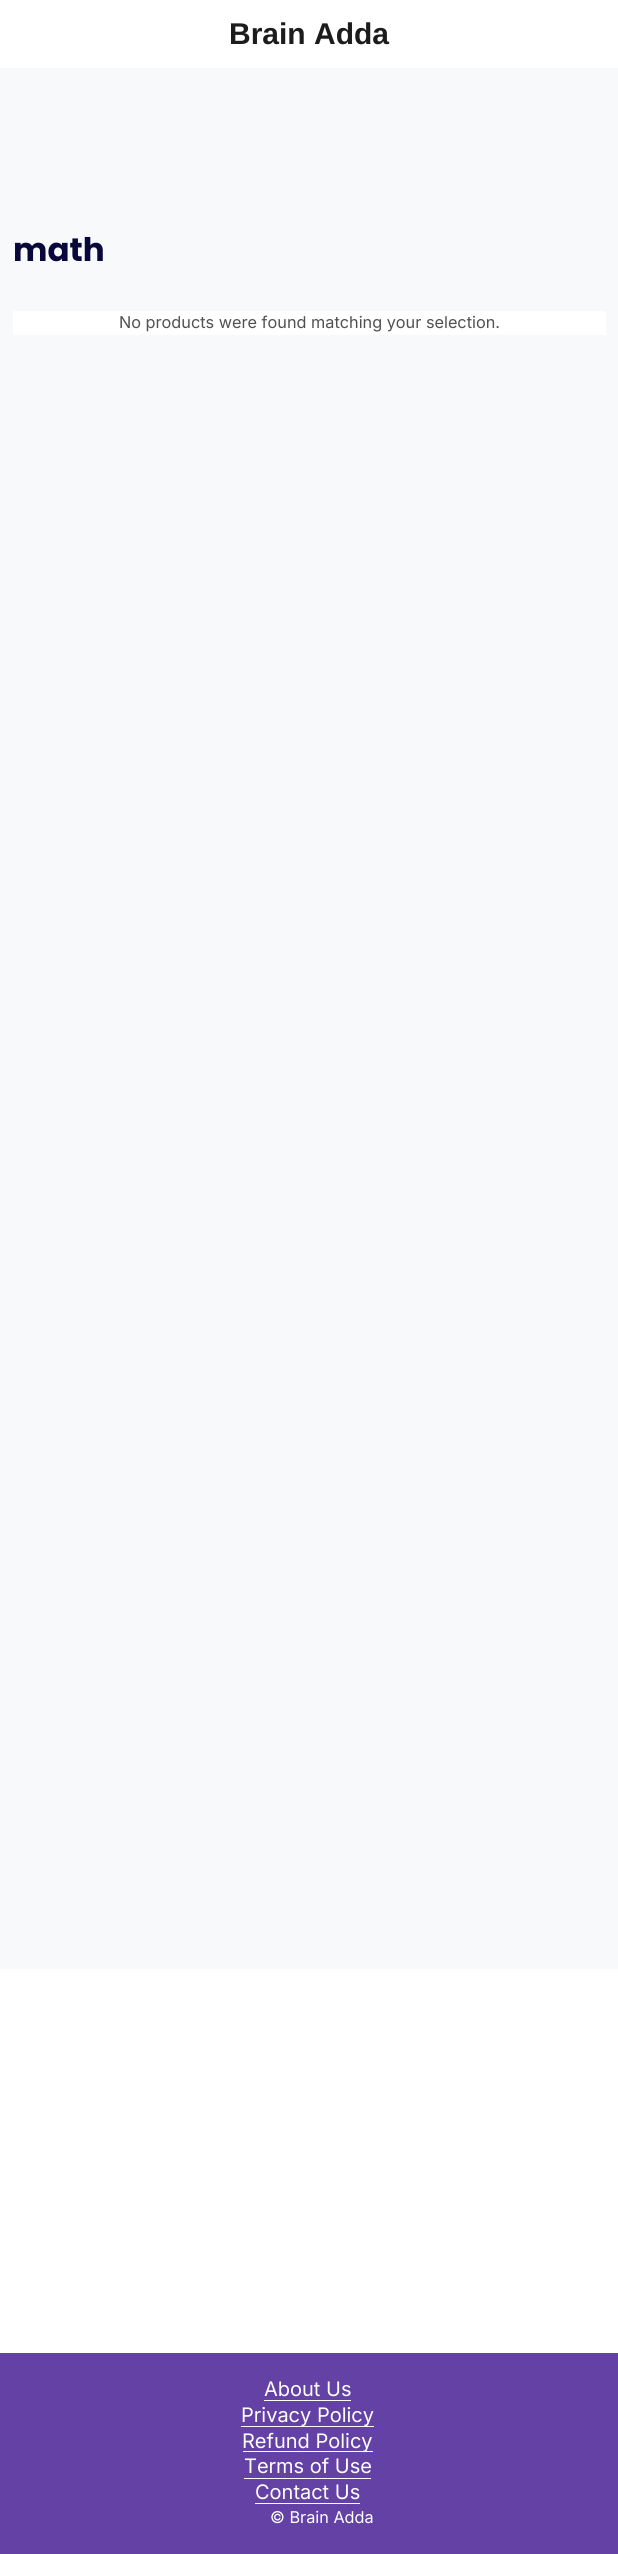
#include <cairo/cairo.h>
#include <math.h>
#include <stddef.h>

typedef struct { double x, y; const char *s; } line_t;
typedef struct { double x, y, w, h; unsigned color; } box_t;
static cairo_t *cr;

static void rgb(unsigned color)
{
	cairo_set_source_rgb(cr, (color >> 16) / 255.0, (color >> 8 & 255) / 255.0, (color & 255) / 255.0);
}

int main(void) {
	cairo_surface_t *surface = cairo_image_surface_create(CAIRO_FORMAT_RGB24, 618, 2554);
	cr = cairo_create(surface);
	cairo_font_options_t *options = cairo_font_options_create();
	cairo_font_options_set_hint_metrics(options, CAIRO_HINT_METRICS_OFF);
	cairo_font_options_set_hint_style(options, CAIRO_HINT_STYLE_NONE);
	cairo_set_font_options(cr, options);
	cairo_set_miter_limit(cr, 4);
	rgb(0xf7f9fa);
	cairo_paint(cr);
	{
		static const box_t items[] = {
			{0, 0, 618, 68, 0xffffff},
			{13, 311, 593, 24, 0xffffff},
			{0, 1969, 618, 384, 0xffffff},
			{0, 2353, 618, 201, 0x6441a5},
			{264, 2400, 87, 1, 0xffffff},
			{241, 2426, 133, 1, 0xffffff},
			{243, 2451, 130, 1, 0xffffff},
			{244, 2478, 127, 1, 0xffffff},
			{255, 2503, 105, 1, 0xffffff},
		};
		for (size_t i = 0; i < sizeof items / sizeof *items; i++) {
			rgb(items[i].color);
			cairo_rectangle(cr, items[i].x, items[i].y, items[i].w, items[i].h);
			cairo_fill(cr);
		}
	}
	cairo_select_font_face(cr, "Liberation Sans", CAIRO_FONT_SLANT_NORMAL, CAIRO_FONT_WEIGHT_BOLD);
	cairo_set_font_size(cr, 30);
	rgb(0x1c1c1c);
	cairo_move_to(cr, 229, 44);
	cairo_show_text(cr, "Brain Adda");
	cairo_select_font_face(cr, "Poppins", CAIRO_FONT_SLANT_NORMAL, CAIRO_FONT_WEIGHT_BOLD);
	cairo_set_font_size(cr, 32.5);
	rgb(0x0a083b);
	cairo_move_to(cr, 13, 261);
	cairo_show_text(cr, "math");
	cairo_select_font_face(cr, "Inter", CAIRO_FONT_SLANT_NORMAL, CAIRO_FONT_WEIGHT_NORMAL);
	cairo_set_font_size(cr, 16.25);
	rgb(0x515151);
	cairo_move_to(cr, 119, 328);
	cairo_show_text(cr, "No products were found matching your selection.");
	cairo_set_font_size(cr, 20);
	rgb(0xffffff);
	{
		static const line_t items[] = {
			{264, 2396, "About Us"},
			{241, 2422, "Privacy Policy"},
			{242, 2448, "Refund Policy"},
			{244, 2473, "Terms of Use"},
			{255, 2499, "Contact Us"},
		};
		for (size_t i = 0; i < sizeof items / sizeof *items; i++) {
			cairo_move_to(cr, items[i].x, items[i].y);
			cairo_show_text(cr, items[i].s);
		}
	}
	cairo_set_font_size(cr, 16.25);
	cairo_move_to(cr, 270, 2523);
	cairo_show_text(cr, "© Brain Adda");
	cairo_surface_write_to_png(surface, "page.png");
	cairo_font_options_destroy(options);
	cairo_destroy(cr);
	cairo_surface_destroy(surface);
	return 0;
}
